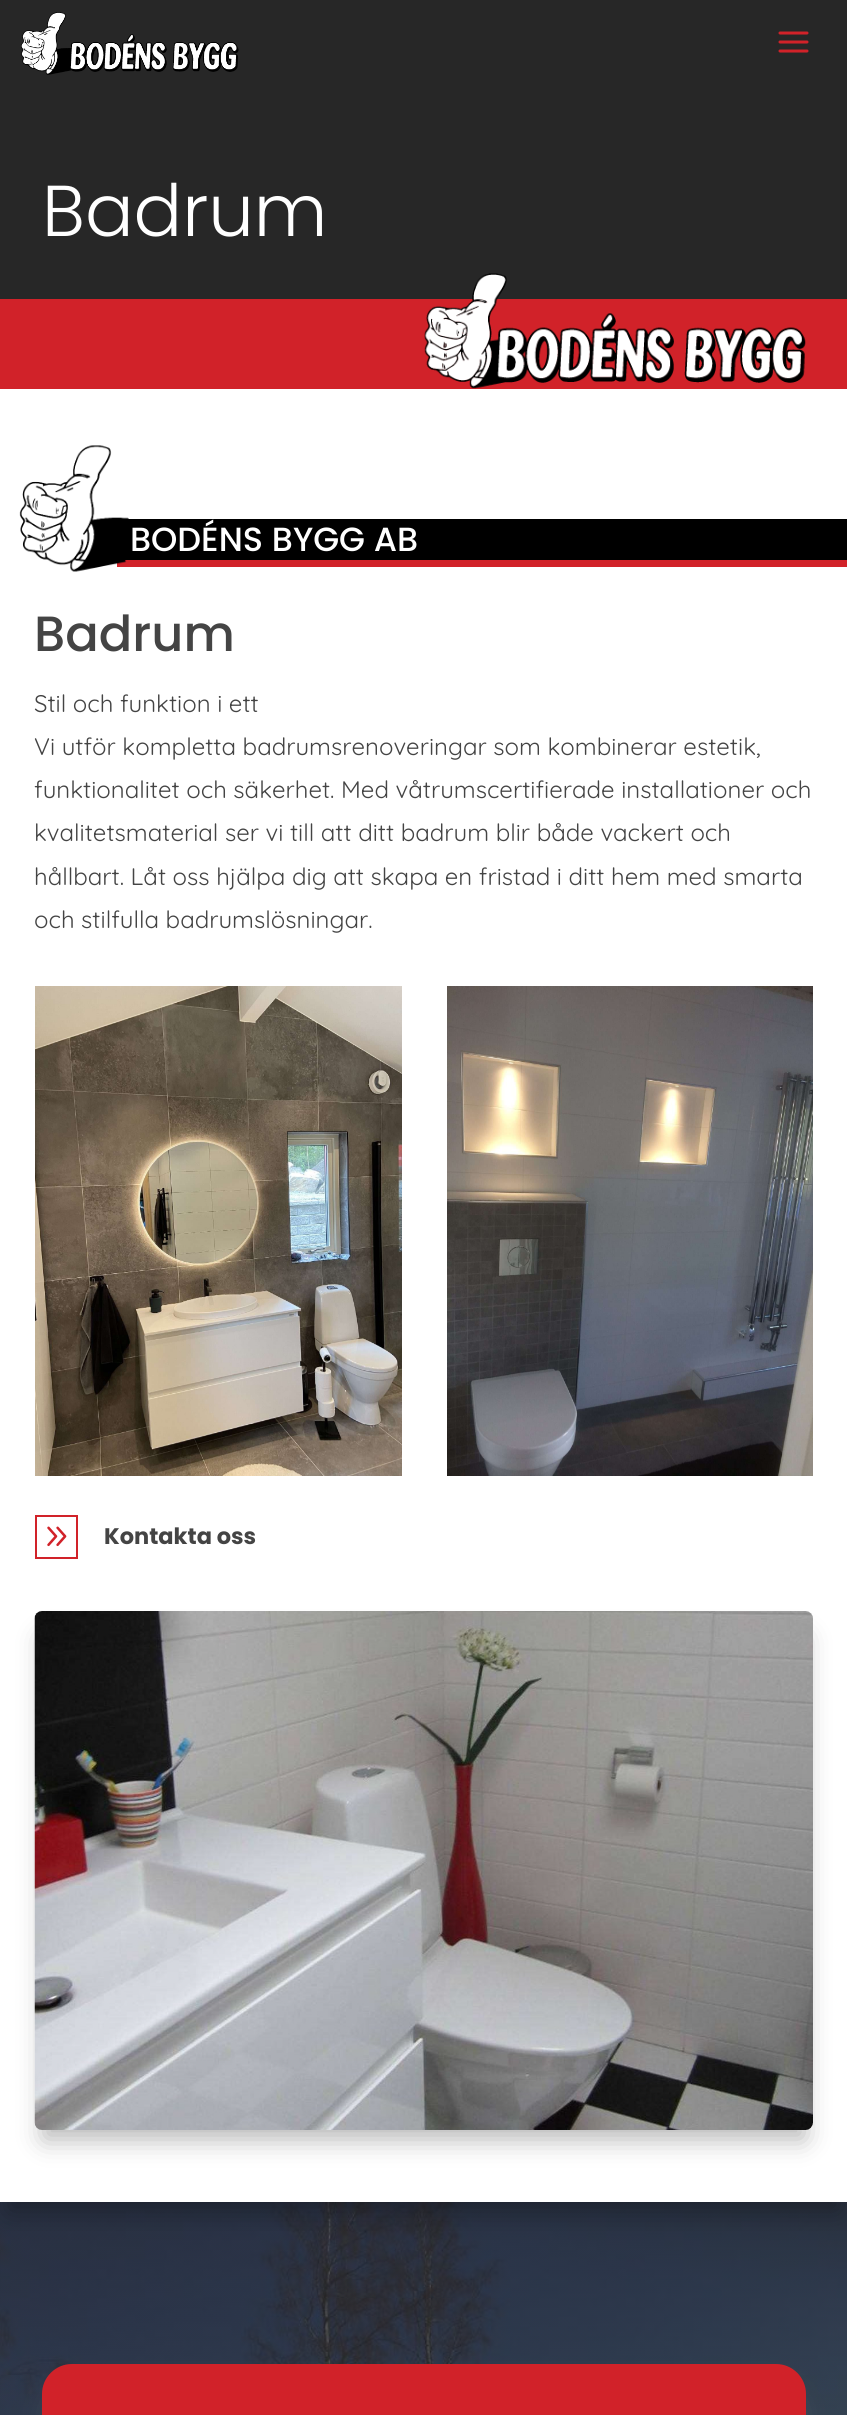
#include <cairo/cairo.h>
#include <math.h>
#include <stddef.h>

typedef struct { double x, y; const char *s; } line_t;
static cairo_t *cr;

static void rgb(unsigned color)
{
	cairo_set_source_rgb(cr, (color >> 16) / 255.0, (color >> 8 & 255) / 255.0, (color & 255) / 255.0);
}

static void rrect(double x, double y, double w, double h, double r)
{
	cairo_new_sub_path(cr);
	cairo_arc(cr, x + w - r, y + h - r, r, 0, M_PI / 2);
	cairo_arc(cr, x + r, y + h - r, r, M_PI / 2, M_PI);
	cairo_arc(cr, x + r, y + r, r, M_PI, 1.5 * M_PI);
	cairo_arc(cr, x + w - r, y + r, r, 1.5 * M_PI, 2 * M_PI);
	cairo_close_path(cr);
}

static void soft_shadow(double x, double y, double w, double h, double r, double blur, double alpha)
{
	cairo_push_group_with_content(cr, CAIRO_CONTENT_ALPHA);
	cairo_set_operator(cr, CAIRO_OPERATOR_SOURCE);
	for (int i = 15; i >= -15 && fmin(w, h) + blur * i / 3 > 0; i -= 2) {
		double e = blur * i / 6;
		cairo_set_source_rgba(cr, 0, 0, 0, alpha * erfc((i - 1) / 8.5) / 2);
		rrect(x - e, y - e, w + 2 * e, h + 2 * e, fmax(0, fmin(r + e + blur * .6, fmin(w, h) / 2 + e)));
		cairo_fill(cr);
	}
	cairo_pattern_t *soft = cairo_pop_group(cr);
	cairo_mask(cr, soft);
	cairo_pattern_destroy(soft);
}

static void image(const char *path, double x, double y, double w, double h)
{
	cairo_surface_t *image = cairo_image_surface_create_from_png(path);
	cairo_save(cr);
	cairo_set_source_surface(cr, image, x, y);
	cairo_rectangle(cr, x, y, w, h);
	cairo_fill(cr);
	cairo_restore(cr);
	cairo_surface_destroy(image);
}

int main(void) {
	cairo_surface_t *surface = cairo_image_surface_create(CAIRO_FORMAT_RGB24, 847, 2415);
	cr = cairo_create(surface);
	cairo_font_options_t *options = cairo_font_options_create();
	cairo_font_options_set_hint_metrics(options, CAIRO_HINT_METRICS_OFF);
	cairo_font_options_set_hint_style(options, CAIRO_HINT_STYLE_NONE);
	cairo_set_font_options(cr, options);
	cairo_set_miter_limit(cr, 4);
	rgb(0xffffff);
	cairo_paint(cr);
	rgb(0x272727);
	cairo_rectangle(cr, 0, 0, 847, 299);
	cairo_fill(cr);
	image("img/1.png", 21, 12, 218, 63);
	image("img/2.png", 778, 31, 31, 22);
	rgb(0xd12229);
	cairo_rectangle(cr, 0, 299, 847, 90);
	cairo_fill(cr);
	image("img/3.png", 424, 273, 382, 116);
	image("img/9.png", 0, 2202, 847, 213);
	cairo_save(cr);
	cairo_rectangle(cr, 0, 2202, 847, 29);
	cairo_clip(cr);
	rgb(0x000000);
	soft_shadow(9, 416, 830, 1795, 0, 13.5, 0.3);
	cairo_restore(cr);
	rgb(0x000000);
	cairo_rectangle(cr, 120, 519, 727, 41);
	cairo_fill(cr);
	rgb(0xd12229);
	cairo_rectangle(cr, 117, 560, 730, 7);
	cairo_fill(cr);
	image("img/4.png", 19, 445, 110, 127);
	image("img/5.png", 35, 986, 367, 490);
	image("img/6.png", 447, 986, 366, 490);
	cairo_rectangle(cr, 36, 1516, 41, 42);
	cairo_stroke(cr);
	image("img/7.png", 47, 1526, 20, 21);
	rgb(0x000000);
	soft_shadow(44, 1638, 760, 501, 0, 13.5, 0.29);
	image("img/8.png", 34, 1611, 779, 519);
	rgb(0x666666);
	soft_shadow(51, 2391, 746, 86, 21, 13.5, 0.51);
	rgb(0xd12229);
	rrect(42, 2364, 764, 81, 30);
	cairo_fill(cr);
	cairo_select_font_face(cr, "Poppins Light", CAIRO_FONT_SLANT_NORMAL, CAIRO_FONT_WEIGHT_NORMAL);
	cairo_set_font_size(cr, 72);
	rgb(0xffffff);
	cairo_move_to(cr, 42, 236);
	cairo_show_text(cr, "Badrum");
	cairo_select_font_face(cr, "Poppins Medium", CAIRO_FONT_SLANT_NORMAL, CAIRO_FONT_WEIGHT_NORMAL);
	cairo_set_font_size(cr, 33.5);
	cairo_move_to(cr, 130, 551);
	cairo_show_text(cr, "BODÉNS BYGG AB");
	cairo_set_font_size(cr, 49.5);
	rgb(0x444444);
	cairo_move_to(cr, 34, 651);
	cairo_show_text(cr, "Badrum");
	cairo_select_font_face(cr, "Quicksand", CAIRO_FONT_SLANT_NORMAL, CAIRO_FONT_WEIGHT_NORMAL);
	cairo_set_font_size(cr, 24);
	{
		static const line_t items[] = {
			{34, 712, "Stil och funktion i ett"},
			{34, 755, "Vi utför kompletta badrumsrenoveringar som kombinerar estetik,"},
			{34, 798, "funktionalitet och säkerhet. Med våtrumscertifierade installationer och"},
			{34, 841, "kvalitetsmaterial ser vi till att ditt badrum blir både vackert och"},
			{34, 885, "hållbart. Låt oss hjälpa dig att skapa en fristad i ditt hem med smarta"},
			{34, 928, "och stilfulla badrumslösningar."},
		};
		for (size_t i = 0; i < sizeof items / sizeof *items; i++) {
			cairo_move_to(cr, items[i].x, items[i].y);
			cairo_show_text(cr, items[i].s);
		}
	}
	cairo_select_font_face(cr, "Poppins", CAIRO_FONT_SLANT_NORMAL, CAIRO_FONT_WEIGHT_BOLD);
	cairo_set_font_size(cr, 22.5);
	cairo_move_to(cr, 104, 1544);
	cairo_show_text(cr, "Kontakta oss");
	cairo_surface_write_to_png(surface, "page.png");
	cairo_font_options_destroy(options);
	cairo_destroy(cr);
	cairo_surface_destroy(surface);
	return 0;
}
